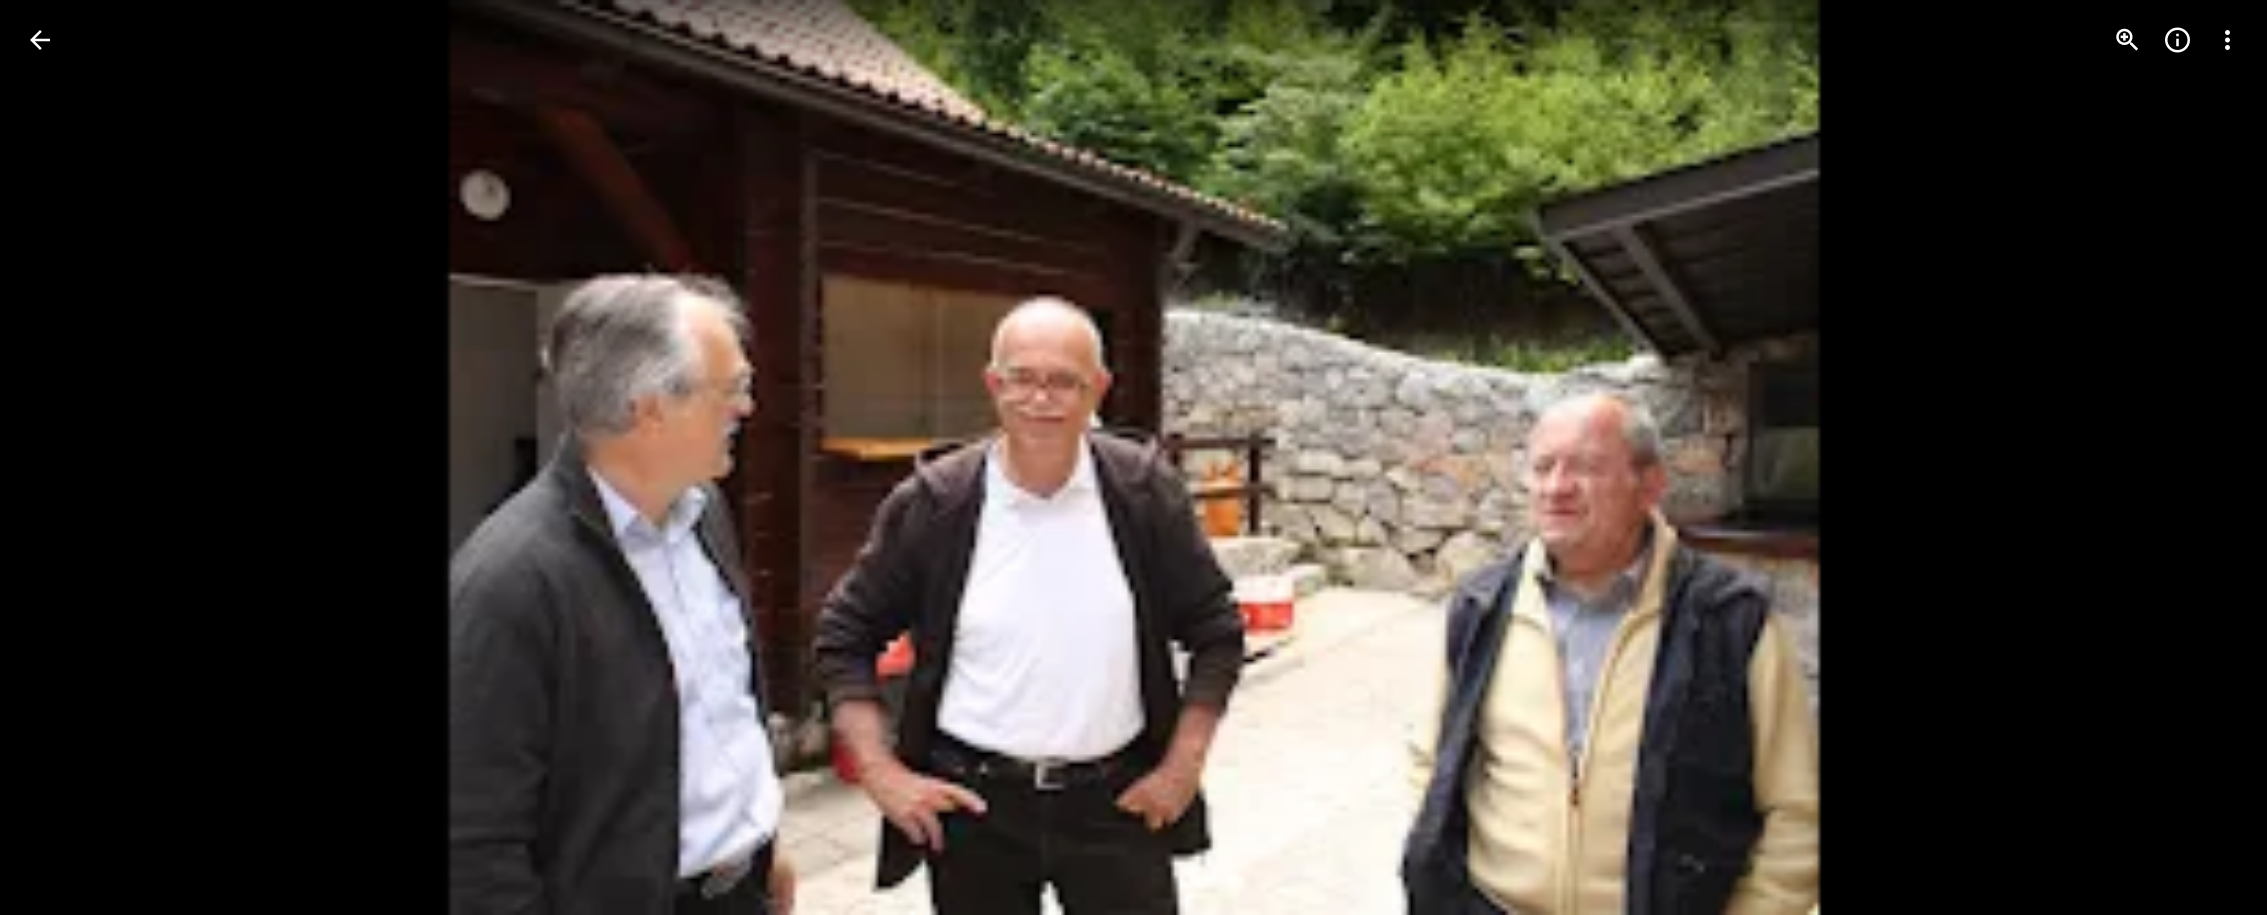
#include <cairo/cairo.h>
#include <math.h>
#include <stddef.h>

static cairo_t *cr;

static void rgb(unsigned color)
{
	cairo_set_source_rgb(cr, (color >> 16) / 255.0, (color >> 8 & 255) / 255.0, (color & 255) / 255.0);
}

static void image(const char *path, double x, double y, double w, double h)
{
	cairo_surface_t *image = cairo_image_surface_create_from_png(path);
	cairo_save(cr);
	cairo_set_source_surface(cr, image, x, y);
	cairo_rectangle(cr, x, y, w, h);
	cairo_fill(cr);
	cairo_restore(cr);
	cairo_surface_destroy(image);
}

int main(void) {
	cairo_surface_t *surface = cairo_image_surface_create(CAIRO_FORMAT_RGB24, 2267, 915);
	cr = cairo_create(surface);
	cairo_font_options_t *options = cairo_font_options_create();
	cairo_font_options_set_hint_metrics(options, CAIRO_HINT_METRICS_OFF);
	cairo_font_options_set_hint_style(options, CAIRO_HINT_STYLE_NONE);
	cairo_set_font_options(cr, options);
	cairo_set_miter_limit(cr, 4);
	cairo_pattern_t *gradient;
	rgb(0x000000);
	cairo_paint(cr);
	image("img/5.png", 443, 0, 1379, 915);
	gradient = cairo_pattern_create_linear(1134, 0, 1134, 80);
	cairo_pattern_add_color_stop_rgba(gradient, 0, 0, 0, 0, 0.6);
	cairo_pattern_add_color_stop_rgba(gradient, 1, 0, 0, 0, 0);
	cairo_set_source(cr, gradient);
	cairo_pattern_destroy(gradient);
	cairo_rectangle(cr, 447, 0, 1375, 77);
	cairo_fill(cr);
	image("img/1.png", 30, 30, 20, 20);
	image("img/2.png", 2116, 28, 22, 23);
	image("img/3.png", 2165, 27, 25, 26);
	image("img/4.png", 2225, 30, 5, 20);
	cairo_surface_write_to_png(surface, "page.png");
	cairo_font_options_destroy(options);
	cairo_destroy(cr);
	cairo_surface_destroy(surface);
	return 0;
}
